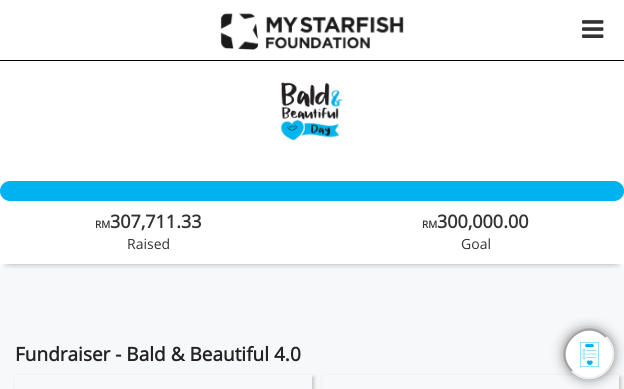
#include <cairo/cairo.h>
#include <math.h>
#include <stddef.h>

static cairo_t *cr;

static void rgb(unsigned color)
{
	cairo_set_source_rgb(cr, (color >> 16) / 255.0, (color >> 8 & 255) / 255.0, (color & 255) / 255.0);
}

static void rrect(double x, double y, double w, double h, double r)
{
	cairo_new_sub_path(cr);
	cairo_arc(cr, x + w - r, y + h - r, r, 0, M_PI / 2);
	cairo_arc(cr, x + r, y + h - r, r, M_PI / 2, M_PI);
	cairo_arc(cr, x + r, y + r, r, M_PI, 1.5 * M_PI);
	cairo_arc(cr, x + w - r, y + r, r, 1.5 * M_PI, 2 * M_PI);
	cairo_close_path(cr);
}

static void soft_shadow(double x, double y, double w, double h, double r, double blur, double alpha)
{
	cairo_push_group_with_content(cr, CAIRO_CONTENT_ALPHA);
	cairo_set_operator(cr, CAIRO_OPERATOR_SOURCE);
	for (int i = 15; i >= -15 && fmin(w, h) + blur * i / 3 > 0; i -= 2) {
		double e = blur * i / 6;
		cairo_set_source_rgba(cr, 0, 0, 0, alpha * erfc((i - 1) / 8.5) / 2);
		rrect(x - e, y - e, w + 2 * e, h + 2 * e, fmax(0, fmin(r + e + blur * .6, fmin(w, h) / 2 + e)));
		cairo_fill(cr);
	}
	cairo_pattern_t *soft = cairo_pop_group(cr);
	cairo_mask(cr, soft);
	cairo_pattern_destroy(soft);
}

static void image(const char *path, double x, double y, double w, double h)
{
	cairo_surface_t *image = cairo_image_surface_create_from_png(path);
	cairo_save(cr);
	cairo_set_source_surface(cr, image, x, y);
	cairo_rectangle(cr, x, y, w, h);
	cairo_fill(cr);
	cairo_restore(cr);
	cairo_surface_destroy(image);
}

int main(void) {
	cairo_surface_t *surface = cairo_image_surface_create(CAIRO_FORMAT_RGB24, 624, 389);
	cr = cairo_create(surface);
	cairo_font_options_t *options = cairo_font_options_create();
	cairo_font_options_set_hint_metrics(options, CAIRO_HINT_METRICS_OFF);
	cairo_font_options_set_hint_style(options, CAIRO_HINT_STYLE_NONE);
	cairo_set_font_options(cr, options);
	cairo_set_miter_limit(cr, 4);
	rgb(0xffffff);
	cairo_paint(cr);
	rgb(0xf7f8f9);
	cairo_rectangle(cr, 0, 264, 624, 125);
	cairo_fill(cr);
	cairo_save(cr);
	cairo_rectangle(cr, 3, 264, 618, 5);
	cairo_clip(cr);
	rgb(0x000000);
	soft_shadow(8, 11, 608, 248, 0, 5, 1);
	cairo_restore(cr);
	image("img/1.png", 220, 13, 184, 38);
	image("img/2.png", 582, 20, 22, 18);
	rgb(0x000000);
	cairo_rectangle(cr, 0, 60, 624, 1);
	cairo_fill(cr);
	image("img/3.png", 280, 82, 63, 59);
	cairo_save(cr);
	rrect(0, 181, 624, 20, 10);
	cairo_clip(cr);
	rgb(0xb8b8b8);
	soft_shadow(1, 182, 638, 18, 9, 2.5, 1);
	cairo_restore(cr);
	rgb(0x00b3f0);
	rrect(0, 181, 624, 20, 10);
	cairo_fill(cr);
	cairo_save(cr);
	cairo_set_fill_rule(cr, CAIRO_FILL_RULE_EVEN_ODD);
	cairo_new_path(cr);
	cairo_move_to(cr, 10, 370);
	cairo_line_to(cr, 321, 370);
	cairo_line_to(cr, 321, 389);
	cairo_line_to(cr, 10, 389);
	cairo_close_path(cr);
	cairo_move_to(cr, 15, 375);
	cairo_line_to(cr, 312, 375);
	cairo_line_to(cr, 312, 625);
	cairo_line_to(cr, 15, 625);
	cairo_close_path(cr);
	cairo_clip(cr);
	rgb(0xc3c3c3);
	soft_shadow(17, 377, 297, 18, 0, 2, 1);
	cairo_restore(cr);
	cairo_save(cr);
	cairo_set_fill_rule(cr, CAIRO_FILL_RULE_EVEN_ODD);
	cairo_new_path(cr);
	cairo_move_to(cr, 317, 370);
	cairo_line_to(cr, 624, 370);
	cairo_line_to(cr, 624, 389);
	cairo_line_to(cr, 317, 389);
	cairo_close_path(cr);
	cairo_move_to(cr, 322, 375);
	cairo_line_to(cr, 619, 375);
	cairo_line_to(cr, 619, 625);
	cairo_line_to(cr, 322, 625);
	cairo_close_path(cr);
	cairo_clip(cr);
	rgb(0xc3c3c3);
	soft_shadow(324, 377, 297, 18, 0, 2, 1);
	cairo_restore(cr);
	rgb(0x000000);
	soft_shadow(569, 334, 40, 40, 20, 7.5, 1);
	rgb(0xffffff);
	cairo_arc(cr, 589, 354, 25, 0, 2 * M_PI);
	cairo_fill(cr);
	cairo_new_path(cr);
	cairo_move_to(cr, 606, 337);
	cairo_curve_to(cr, 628.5, 359.5, 594.5, 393.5, 572, 371);
	rgb(0xeeeeee);
	cairo_stroke(cr);
	cairo_new_path(cr);
	cairo_move_to(cr, 572, 371);
	cairo_curve_to(cr, 549.5, 348.5, 583.5, 314.5, 606, 337);
	rgb(0x9f9f9f);
	cairo_stroke(cr);
	image("img/4.png", 580, 342, 19, 25);
	cairo_select_font_face(cr, "Open Sans", CAIRO_FONT_SLANT_NORMAL, CAIRO_FONT_WEIGHT_BOLD);
	cairo_set_font_size(cr, 10);
	rgb(0x333333);
	cairo_move_to(cr, 95, 228);
	cairo_show_text(cr, "RM");
	cairo_set_font_size(cr, 18);
	cairo_move_to(cr, 110, 228);
	cairo_show_text(cr, "307,711.33");
	cairo_select_font_face(cr, "Open Sans", CAIRO_FONT_SLANT_NORMAL, CAIRO_FONT_WEIGHT_NORMAL);
	cairo_set_font_size(cr, 14);
	cairo_move_to(cr, 127, 249);
	cairo_show_text(cr, "Raised");
	cairo_select_font_face(cr, "Open Sans", CAIRO_FONT_SLANT_NORMAL, CAIRO_FONT_WEIGHT_BOLD);
	cairo_set_font_size(cr, 10);
	cairo_move_to(cr, 422, 228);
	cairo_show_text(cr, "RM");
	cairo_set_font_size(cr, 18);
	cairo_move_to(cr, 437, 228);
	cairo_show_text(cr, "300,000.00");
	cairo_select_font_face(cr, "Open Sans", CAIRO_FONT_SLANT_NORMAL, CAIRO_FONT_WEIGHT_NORMAL);
	cairo_set_font_size(cr, 14);
	cairo_move_to(cr, 461, 249);
	cairo_show_text(cr, "Goal");
	cairo_select_font_face(cr, "Open Sans", CAIRO_FONT_SLANT_NORMAL, CAIRO_FONT_WEIGHT_BOLD);
	cairo_set_font_size(cr, 19);
	rgb(0x232323);
	cairo_move_to(cr, 15, 361);
	cairo_show_text(cr, "Fundraiser - Bald & Beautiful 4.0");
	cairo_surface_write_to_png(surface, "page.png");
	cairo_font_options_destroy(options);
	cairo_destroy(cr);
	cairo_surface_destroy(surface);
	return 0;
}
